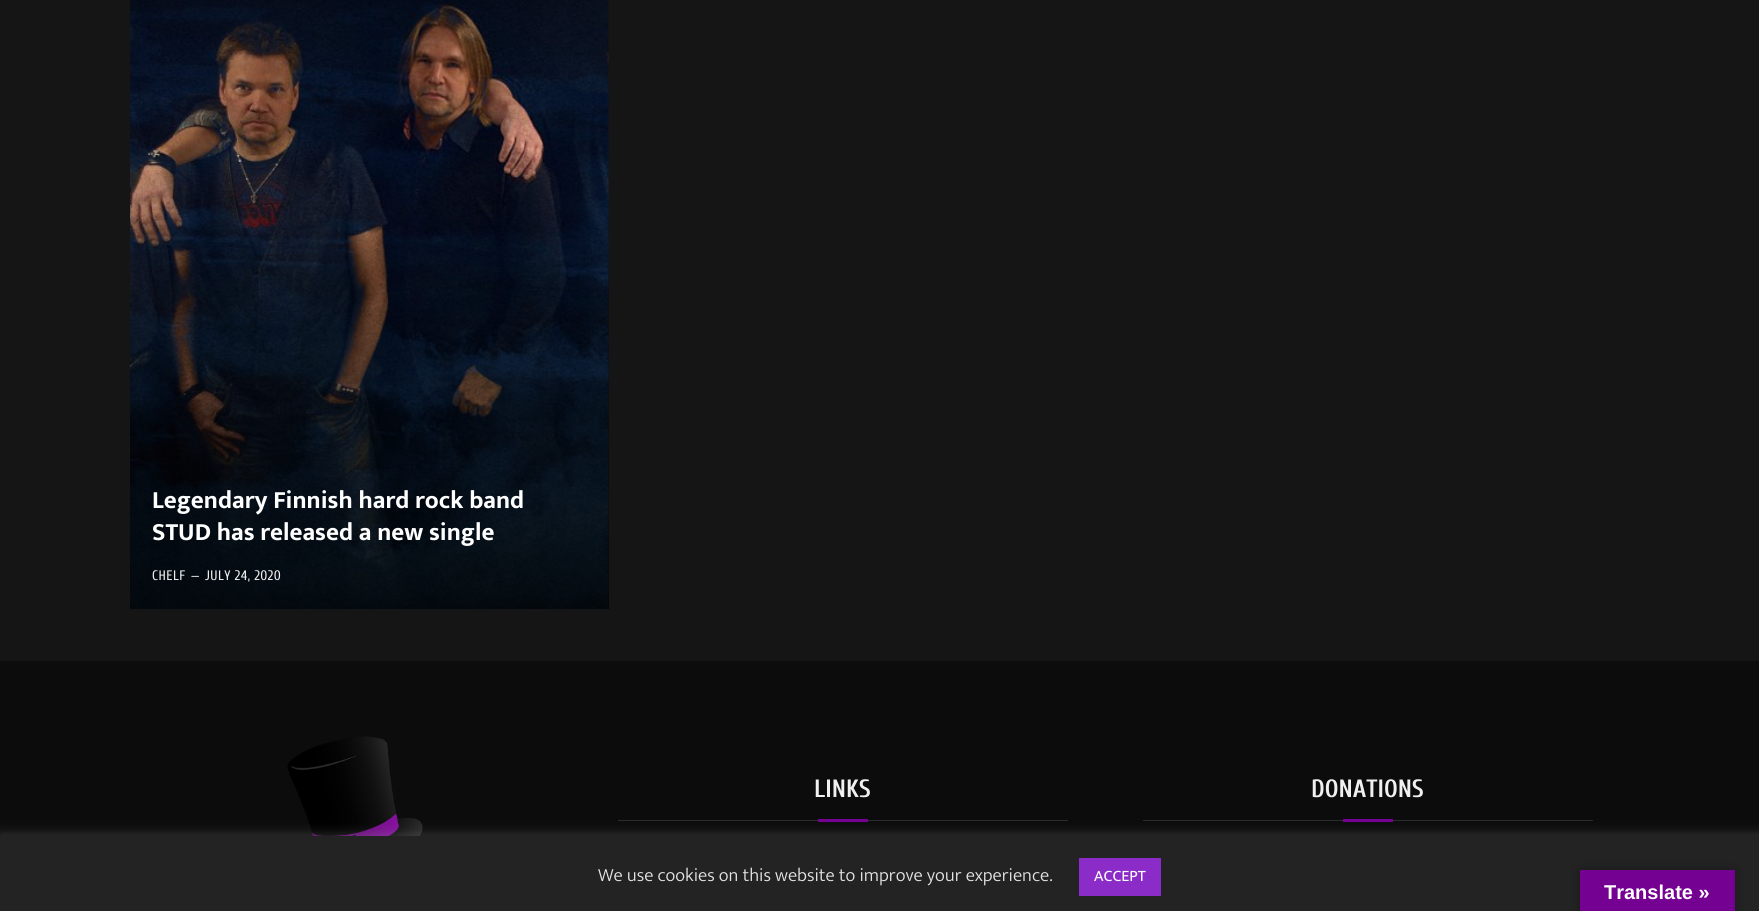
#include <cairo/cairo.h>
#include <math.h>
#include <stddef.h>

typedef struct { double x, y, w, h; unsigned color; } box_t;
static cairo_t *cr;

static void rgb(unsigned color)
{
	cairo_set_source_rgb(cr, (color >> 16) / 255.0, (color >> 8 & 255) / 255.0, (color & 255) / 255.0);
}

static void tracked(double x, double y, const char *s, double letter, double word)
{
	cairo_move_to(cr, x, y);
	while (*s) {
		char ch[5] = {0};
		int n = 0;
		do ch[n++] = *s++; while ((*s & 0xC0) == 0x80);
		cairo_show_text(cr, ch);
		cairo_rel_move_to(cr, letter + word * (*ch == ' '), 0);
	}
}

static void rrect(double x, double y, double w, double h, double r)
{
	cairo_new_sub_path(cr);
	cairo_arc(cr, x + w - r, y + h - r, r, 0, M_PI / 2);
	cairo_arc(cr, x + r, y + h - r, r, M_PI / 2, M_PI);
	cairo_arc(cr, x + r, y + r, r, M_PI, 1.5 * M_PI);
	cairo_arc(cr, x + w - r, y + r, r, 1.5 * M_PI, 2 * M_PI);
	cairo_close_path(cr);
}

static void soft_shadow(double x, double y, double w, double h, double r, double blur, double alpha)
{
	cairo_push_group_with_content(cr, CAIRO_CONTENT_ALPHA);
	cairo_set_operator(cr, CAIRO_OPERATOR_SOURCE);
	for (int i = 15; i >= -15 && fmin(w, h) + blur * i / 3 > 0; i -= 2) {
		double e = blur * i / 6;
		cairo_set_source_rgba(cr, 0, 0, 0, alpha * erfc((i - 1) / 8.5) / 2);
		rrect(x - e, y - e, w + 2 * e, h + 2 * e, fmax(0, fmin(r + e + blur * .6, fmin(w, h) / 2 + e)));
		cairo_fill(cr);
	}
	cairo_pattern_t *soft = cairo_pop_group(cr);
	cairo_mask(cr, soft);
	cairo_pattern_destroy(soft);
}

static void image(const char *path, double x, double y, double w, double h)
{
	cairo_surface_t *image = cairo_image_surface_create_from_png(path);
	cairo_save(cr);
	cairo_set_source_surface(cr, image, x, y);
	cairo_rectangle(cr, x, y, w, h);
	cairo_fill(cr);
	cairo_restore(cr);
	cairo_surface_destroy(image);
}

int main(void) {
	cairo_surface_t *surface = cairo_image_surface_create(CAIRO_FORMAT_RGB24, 1759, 911);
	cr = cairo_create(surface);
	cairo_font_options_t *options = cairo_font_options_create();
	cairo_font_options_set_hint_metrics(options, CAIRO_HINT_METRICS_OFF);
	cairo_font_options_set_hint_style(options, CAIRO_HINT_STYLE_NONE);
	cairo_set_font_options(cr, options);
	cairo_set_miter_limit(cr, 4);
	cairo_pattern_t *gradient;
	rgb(0x151516);
	cairo_paint(cr);
	image("img/1.png", 130, 0, 479, 609);
	gradient = cairo_pattern_create_linear(369, -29, 369, 609);
	cairo_pattern_add_color_stop_rgba(gradient, 0.35, 0, 0, 0, 0);
	cairo_pattern_add_color_stop_rgba(gradient, 1, 0, 0, 0, 0.77);
	cairo_set_source(cr, gradient);
	cairo_pattern_destroy(gradient);
	cairo_rectangle(cr, 130, 206, 479, 403);
	cairo_fill(cr);
	rgb(0x0c0c0c);
	cairo_rectangle(cr, 0, 661, 1759, 175);
	cairo_fill(cr);
	image("img/2.png", 287, 736, 136, 100);
	{
		static const box_t items[] = {
			{618, 820, 450, 1, 0x2c2c2c},
			{818, 819, 50, 3, 0x740191},
			{1143, 820, 450, 1, 0x2c2c2c},
			{1343, 819, 50, 3, 0x740191},
		};
		for (size_t i = 0; i < sizeof items / sizeof *items; i++) {
			rgb(items[i].color);
			cairo_rectangle(cr, items[i].x, items[i].y, items[i].w, items[i].h);
			cairo_fill(cr);
		}
	}
	rgb(0xacabab);
	soft_shadow(0, 835, 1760, 75, 0, 6, 0.3);
	rgb(0x232323);
	cairo_rectangle(cr, 0, 836, 1759, 75);
	cairo_fill(cr);
	rgb(0x8c2cc8);
	cairo_rectangle(cr, 1079, 858, 82, 38);
	cairo_fill(cr);
	rgb(0x000000);
	soft_shadow(1580, 870, 155, 41, 0, 5.5, 0.3);
	rgb(0x740191);
	cairo_rectangle(cr, 1580, 870, 155, 41);
	cairo_fill(cr);
	cairo_select_font_face(cr, "Mukta Vaani", CAIRO_FONT_SLANT_NORMAL, CAIRO_FONT_WEIGHT_BOLD);
	cairo_set_font_size(cr, 25);
	rgb(0xffffff);
	cairo_move_to(cr, 152, 508);
	cairo_show_text(cr, "Legendary Finnish hard rock band");
	cairo_move_to(cr, 152, 540);
	cairo_show_text(cr, "STUD has released a new single");
	cairo_select_font_face(cr, "Cuprum", CAIRO_FONT_SLANT_NORMAL, CAIRO_FONT_WEIGHT_NORMAL);
	cairo_set_font_size(cr, 13.75);
	rgb(0xf0f0f0);
	tracked(152, 580, "CHELF", 0.5, 0);
	cairo_set_font_size(cr, 13);
	cairo_move_to(cr, 191, 580);
	cairo_show_text(cr, "—");
	cairo_set_font_size(cr, 13.75);
	tracked(205, 580, "JULY 24, 2020", 0.5, 0);
	cairo_select_font_face(cr, "Cuprum", CAIRO_FONT_SLANT_NORMAL, CAIRO_FONT_WEIGHT_BOLD);
	cairo_set_font_size(cr, 25);
	cairo_move_to(cr, 814, 797);
	cairo_show_text(cr, "LINKS");
	cairo_move_to(cr, 1311, 797);
	cairo_show_text(cr, "DONATIONS");
	cairo_select_font_face(cr, "Mukta Vaani Light", CAIRO_FONT_SLANT_NORMAL, CAIRO_FONT_WEIGHT_NORMAL);
	cairo_set_font_size(cr, 18.75);
	rgb(0xe4e4e4);
	cairo_move_to(cr, 598, 881);
	cairo_show_text(cr, "We use cookies on this website to improve your experience.");
	cairo_select_font_face(cr, "Mukta Vaani", CAIRO_FONT_SLANT_NORMAL, CAIRO_FONT_WEIGHT_NORMAL);
	cairo_set_font_size(cr, 16);
	rgb(0xffffff);
	cairo_move_to(cr, 1094, 881);
	cairo_show_text(cr, "ACCEPT");
	cairo_select_font_face(cr, "Liberation Sans", CAIRO_FONT_SLANT_NORMAL, CAIRO_FONT_WEIGHT_BOLD);
	cairo_set_font_size(cr, 20);
	cairo_move_to(cr, 1604, 899);
	cairo_show_text(cr, "Translate »");
	cairo_surface_write_to_png(surface, "page.png");
	cairo_font_options_destroy(options);
	cairo_destroy(cr);
	cairo_surface_destroy(surface);
	return 0;
}
